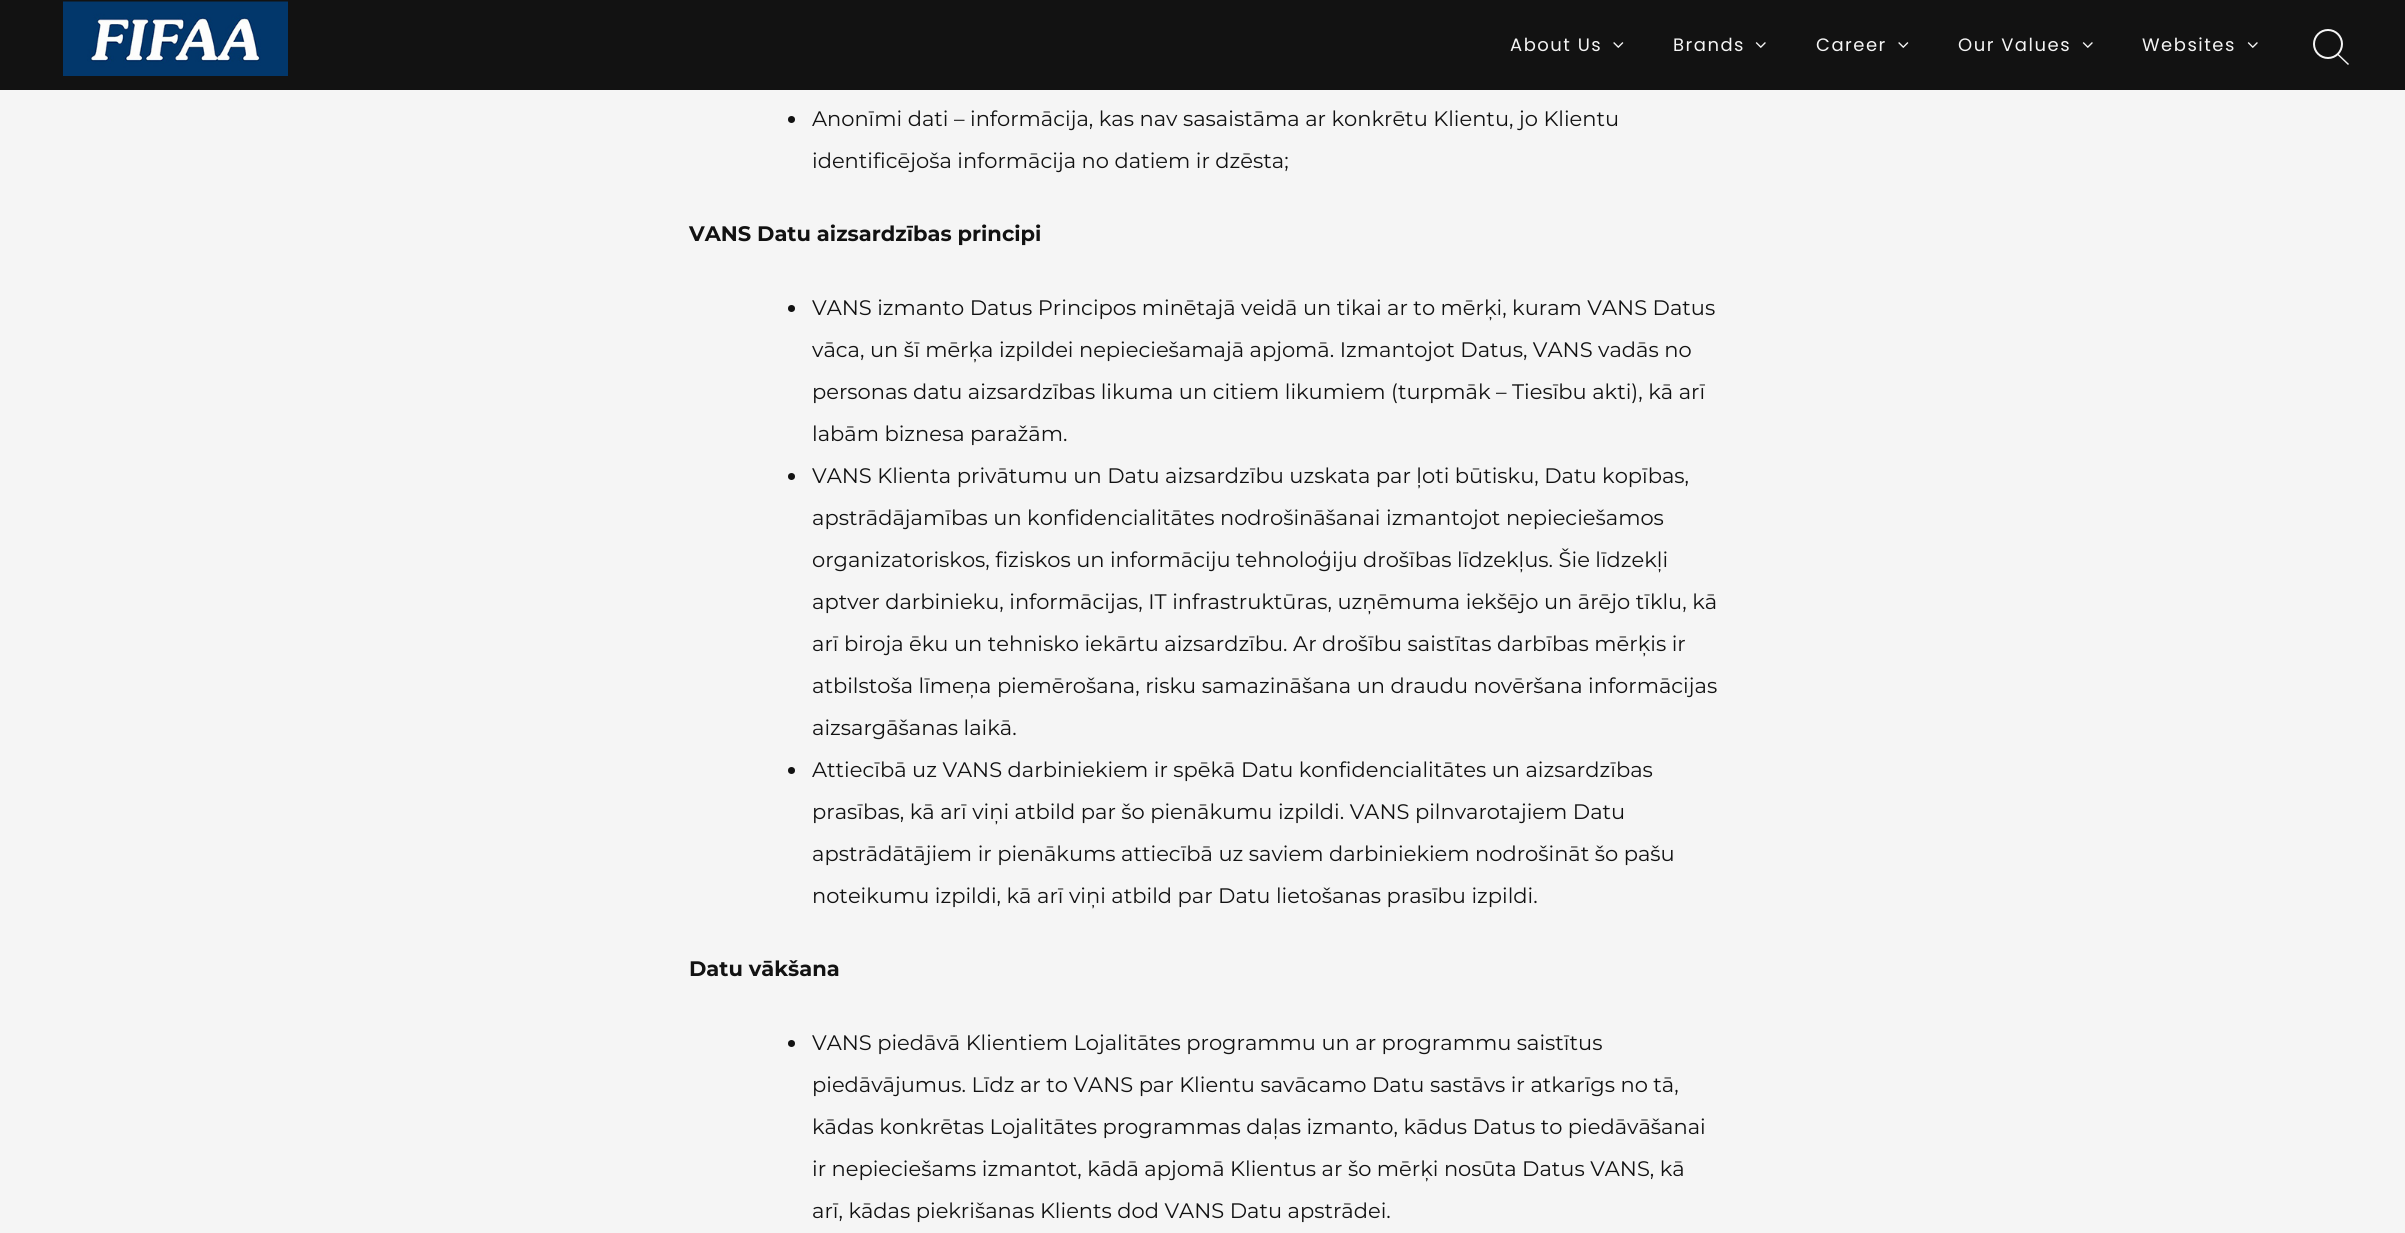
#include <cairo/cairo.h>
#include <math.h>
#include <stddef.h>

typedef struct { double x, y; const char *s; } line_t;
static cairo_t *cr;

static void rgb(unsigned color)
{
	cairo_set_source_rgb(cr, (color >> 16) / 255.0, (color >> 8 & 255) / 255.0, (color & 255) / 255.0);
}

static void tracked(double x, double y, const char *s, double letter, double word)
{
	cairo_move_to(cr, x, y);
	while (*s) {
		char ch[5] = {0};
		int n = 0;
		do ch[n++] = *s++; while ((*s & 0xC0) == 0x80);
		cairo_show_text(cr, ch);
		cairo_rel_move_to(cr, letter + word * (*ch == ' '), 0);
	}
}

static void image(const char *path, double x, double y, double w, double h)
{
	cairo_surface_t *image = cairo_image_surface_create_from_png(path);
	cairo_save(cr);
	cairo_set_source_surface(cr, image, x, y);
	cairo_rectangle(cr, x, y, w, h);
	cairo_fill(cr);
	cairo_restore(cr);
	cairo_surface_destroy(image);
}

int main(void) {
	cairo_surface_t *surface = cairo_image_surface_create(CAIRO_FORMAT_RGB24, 2405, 1233);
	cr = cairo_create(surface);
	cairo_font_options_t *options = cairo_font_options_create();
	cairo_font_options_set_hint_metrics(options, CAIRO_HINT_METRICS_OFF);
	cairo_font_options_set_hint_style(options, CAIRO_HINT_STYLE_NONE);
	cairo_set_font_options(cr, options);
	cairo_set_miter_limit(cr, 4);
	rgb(0xf5f5f5);
	cairo_paint(cr);
	rgb(0x121212);
	cairo_rectangle(cr, 0, 0, 2405, 90);
	cairo_fill(cr);
	image("img/1.png", 63, 1, 225, 75);
	image("img/2.png", 1613, 42, 11, 6);
	image("img/3.png", 1755, 42, 11, 6);
	image("img/2.png", 1898, 42, 11, 6);
	image("img/3.png", 2082, 42, 11, 6);
	image("img/3.png", 2247, 42, 11, 6);
	cairo_arc(cr, 2328, 44, 14, 0, 2 * M_PI);
	rgb(0xf5f5f5);
	cairo_stroke(cr);
	cairo_new_path(cr);
	cairo_move_to(cr, 2338, 53.5);
	cairo_line_to(cr, 2349, 64);
	cairo_line_to(cr, 2348, 65);
	cairo_line_to(cr, 2337, 54.5);
	cairo_close_path(cr);
	cairo_fill(cr);
	rgb(0x121212);
	cairo_arc(cr, 791.5, 119.5, 3.5, 0, 2 * M_PI);
	cairo_fill(cr);
	cairo_arc(cr, 791.5, 308.5, 3.5, 0, 2 * M_PI);
	cairo_fill(cr);
	cairo_arc(cr, 791.5, 476.5, 3.5, 0, 2 * M_PI);
	cairo_fill(cr);
	cairo_arc(cr, 791.5, 770.5, 3.5, 0, 2 * M_PI);
	cairo_fill(cr);
	cairo_arc(cr, 791.5, 1043.5, 3.5, 0, 2 * M_PI);
	cairo_fill(cr);
	cairo_select_font_face(cr, "Poppins", CAIRO_FONT_SLANT_NORMAL, CAIRO_FONT_WEIGHT_NORMAL);
	cairo_set_font_size(cr, 18);
	rgb(0xf5f5f5);
	{
		static const line_t items[] = {
			{1510, 51, "About Us"},
			{1673, 51, "Brands"},
			{1816, 51, "Career"},
			{1958, 51, "Our Values"},
			{2142, 51, "Websites"},
		};
		for (size_t i = 0; i < sizeof items / sizeof *items; i++) {
			tracked(items[i].x, items[i].y, items[i].s, 1.5, 0);
		}
	}
	cairo_select_font_face(cr, "Montserrat", CAIRO_FONT_SLANT_NORMAL, CAIRO_FONT_WEIGHT_NORMAL);
	cairo_set_font_size(cr, 21);
	rgb(0x121212);
	cairo_move_to(cr, 812, 126);
	cairo_show_text(cr, "Anonīmi dati – informācija, kas nav sasaistāma ar konkrētu Klientu, jo Klientu");
	cairo_move_to(cr, 812, 168);
	cairo_show_text(cr, "identificējoša informācija no datiem ir dzēsta;");
	cairo_select_font_face(cr, "Montserrat", CAIRO_FONT_SLANT_NORMAL, CAIRO_FONT_WEIGHT_BOLD);
	cairo_move_to(cr, 689, 241);
	cairo_show_text(cr, "VANS Datu aizsardzības principi");
	cairo_select_font_face(cr, "Montserrat", CAIRO_FONT_SLANT_NORMAL, CAIRO_FONT_WEIGHT_NORMAL);
	{
		static const line_t items[] = {
			{812, 315, "VANS izmanto Datus Principos minētajā veidā un tikai ar to mērķi, kuram VANS Datus"},
			{812, 357, "vāca, un šī mērķa izpildei nepieciešamajā apjomā. Izmantojot Datus, VANS vadās no"},
			{812, 399, "personas datu aizsardzības likuma un citiem likumiem (turpmāk – Tiesību akti), kā arī"},
			{812, 441, "labām biznesa paražām."},
			{812, 483, "VANS Klienta privātumu un Datu aizsardzību uzskata par ļoti būtisku, Datu kopības,"},
			{812, 525, "apstrādājamības un konfidencialitātes nodrošināšanai izmantojot nepieciešamos"},
			{812, 567, "organizatoriskos, fiziskos un informāciju tehnoloģiju drošības līdzekļus. Šie līdzekļi"},
			{812, 609, "aptver darbinieku, informācijas, IT infrastruktūras, uzņēmuma iekšējo un ārējo tīklu, kā"},
			{812, 651, "arī biroja ēku un tehnisko iekārtu aizsardzību. Ar drošību saistītas darbības mērķis ir"},
			{812, 693, "atbilstoša līmeņa piemērošana, risku samazināšana un draudu novēršana informācijas"},
			{812, 735, "aizsargāšanas laikā."},
			{812, 777, "Attiecībā uz VANS darbiniekiem ir spēkā Datu konfidencialitātes un aizsardzības"},
			{812, 819, "prasības, kā arī viņi atbild par šo pienākumu izpildi. VANS pilnvarotajiem Datu"},
			{812, 861, "apstrādātājiem ir pienākums attiecībā uz saviem darbiniekiem nodrošināt šo pašu"},
			{812, 903, "noteikumu izpildi, kā arī viņi atbild par Datu lietošanas prasību izpildi."},
		};
		for (size_t i = 0; i < sizeof items / sizeof *items; i++) {
			cairo_move_to(cr, items[i].x, items[i].y);
			cairo_show_text(cr, items[i].s);
		}
	}
	cairo_select_font_face(cr, "Montserrat", CAIRO_FONT_SLANT_NORMAL, CAIRO_FONT_WEIGHT_BOLD);
	cairo_move_to(cr, 689, 976);
	cairo_show_text(cr, "Datu vākšana");
	cairo_select_font_face(cr, "Montserrat", CAIRO_FONT_SLANT_NORMAL, CAIRO_FONT_WEIGHT_NORMAL);
	{
		static const line_t items[] = {
			{812, 1050, "VANS piedāvā Klientiem Lojalitātes programmu un ar programmu saistītus"},
			{812, 1092, "piedāvājumus. Līdz ar to VANS par Klientu savācamo Datu sastāvs ir atkarīgs no tā,"},
			{812, 1134, "kādas konkrētas Lojalitātes programmas daļas izmanto, kādus Datus to piedāvāšanai"},
			{812, 1176, "ir nepieciešams izmantot, kādā apjomā Klientus ar šo mērķi nosūta Datus VANS, kā"},
			{812, 1218, "arī, kādas piekrišanas Klients dod VANS Datu apstrādei."},
		};
		for (size_t i = 0; i < sizeof items / sizeof *items; i++) {
			cairo_move_to(cr, items[i].x, items[i].y);
			cairo_show_text(cr, items[i].s);
		}
	}
	cairo_surface_write_to_png(surface, "page.png");
	cairo_font_options_destroy(options);
	cairo_destroy(cr);
	cairo_surface_destroy(surface);
	return 0;
}
